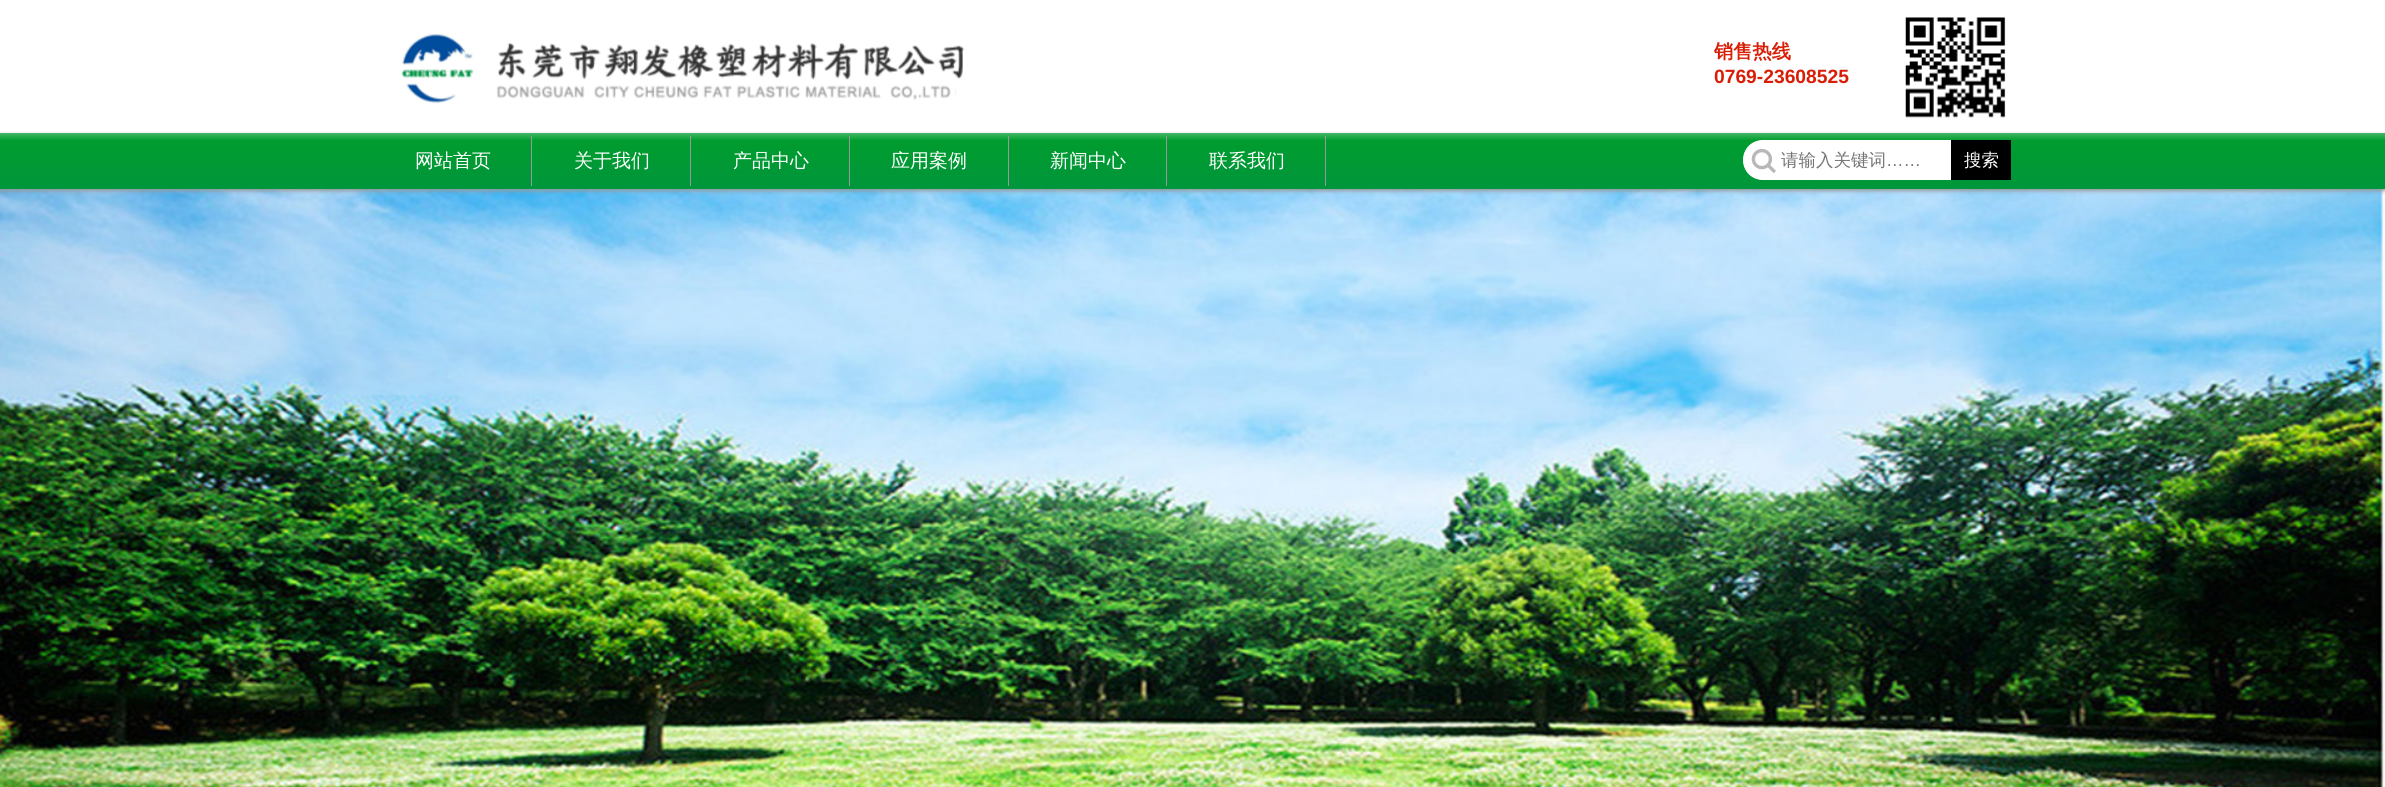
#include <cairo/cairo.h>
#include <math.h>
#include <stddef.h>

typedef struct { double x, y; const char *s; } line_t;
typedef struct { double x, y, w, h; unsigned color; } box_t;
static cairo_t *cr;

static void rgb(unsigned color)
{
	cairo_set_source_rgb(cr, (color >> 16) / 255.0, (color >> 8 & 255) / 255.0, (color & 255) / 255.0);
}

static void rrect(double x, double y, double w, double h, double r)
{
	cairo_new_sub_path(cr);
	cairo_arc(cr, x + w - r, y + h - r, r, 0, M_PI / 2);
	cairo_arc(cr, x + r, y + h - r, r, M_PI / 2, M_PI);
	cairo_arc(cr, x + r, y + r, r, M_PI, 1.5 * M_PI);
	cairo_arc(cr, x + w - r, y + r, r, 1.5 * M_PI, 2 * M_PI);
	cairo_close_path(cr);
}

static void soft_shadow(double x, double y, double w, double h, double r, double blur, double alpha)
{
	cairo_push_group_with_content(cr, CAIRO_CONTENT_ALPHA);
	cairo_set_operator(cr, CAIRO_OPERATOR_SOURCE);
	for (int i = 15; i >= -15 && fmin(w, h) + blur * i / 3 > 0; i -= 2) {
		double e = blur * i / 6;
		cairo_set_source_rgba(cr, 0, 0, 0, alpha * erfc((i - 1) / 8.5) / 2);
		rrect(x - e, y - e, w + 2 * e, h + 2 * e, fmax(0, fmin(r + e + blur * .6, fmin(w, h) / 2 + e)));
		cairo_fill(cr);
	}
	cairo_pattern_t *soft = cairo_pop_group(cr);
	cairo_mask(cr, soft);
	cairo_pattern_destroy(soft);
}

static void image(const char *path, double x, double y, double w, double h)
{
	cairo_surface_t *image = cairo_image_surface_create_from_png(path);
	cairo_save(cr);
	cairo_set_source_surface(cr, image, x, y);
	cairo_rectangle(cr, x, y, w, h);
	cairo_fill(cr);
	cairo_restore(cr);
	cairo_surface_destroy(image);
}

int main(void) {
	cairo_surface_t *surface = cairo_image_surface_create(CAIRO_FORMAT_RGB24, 2385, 787);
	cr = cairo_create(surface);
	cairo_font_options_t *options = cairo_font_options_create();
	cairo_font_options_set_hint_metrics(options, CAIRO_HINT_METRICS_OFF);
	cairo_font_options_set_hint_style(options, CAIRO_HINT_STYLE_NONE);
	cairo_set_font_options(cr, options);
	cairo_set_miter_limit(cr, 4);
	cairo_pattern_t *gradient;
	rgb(0xffffff);
	cairo_paint(cr);
	image("img/1.png", 401, 33, 564, 71);
	image("img/2.png", 1905, 17, 101, 101);
	image("img/4.png", 0, 189, 2385, 598);
	rgb(0x999999);
	soft_shadow(0, 135, 2385, 56, 0, 2, 1);
	gradient = cairo_pattern_create_linear(1193, 113, 1193, 205);
	cairo_pattern_add_color_stop_rgba(gradient, 0, 0.984, 0.984, 0.984, 1);
	cairo_pattern_add_color_stop_rgba(gradient, 0.3, 0, 0.612, 0.18, 1);
	cairo_pattern_add_color_stop_rgba(gradient, 1, 0, 0.58, 0.251, 1);
	cairo_set_source(cr, gradient);
	cairo_pattern_destroy(gradient);
	cairo_rectangle(cr, 0, 133, 2385, 56);
	cairo_fill(cr);
	{
		static const box_t items[] = {
			{531, 136, 1, 50, 0x999999},
			{690, 136, 1, 50, 0x999999},
			{849, 136, 1, 50, 0x999999},
			{1008, 136, 1, 50, 0x999999},
			{1166, 136, 1, 50, 0x999999},
			{1325, 136, 1, 50, 0x999999},
		};
		for (size_t i = 0; i < sizeof items / sizeof *items; i++) {
			rgb(items[i].color);
			cairo_rectangle(cr, items[i].x, items[i].y, items[i].w, items[i].h);
			cairo_fill(cr);
		}
	}
	rgb(0xffffff);
	cairo_new_path(cr);
	cairo_move_to(cr, 1763, 140.5);
	cairo_line_to(cr, 2010.5, 140.5);
	cairo_line_to(cr, 2010.5, 179.5);
	cairo_line_to(cr, 1763, 179.5);
	cairo_curve_to(cr, 1752, 179.5, 1743.5, 171, 1743.5, 160);
	cairo_curve_to(cr, 1743.5, 149, 1752, 140.5, 1763, 140.5);
	cairo_close_path(cr);
	cairo_fill_preserve(cr);
	cairo_set_line_width(cr, 1);
	cairo_stroke(cr);
	image("img/3.png", 1751, 149, 25, 24);
	rgb(0x000000);
	cairo_rectangle(cr, 1951, 140, 60, 40);
	cairo_fill(cr);
	cairo_select_font_face(cr, "WenQuanYi Zen Hei", CAIRO_FONT_SLANT_NORMAL, CAIRO_FONT_WEIGHT_BOLD);
	cairo_set_font_size(cr, 19.25);
	rgb(0xd81e06);
	cairo_move_to(cr, 1714, 58);
	cairo_show_text(cr, "销售热线");
	cairo_select_font_face(cr, "Liberation Sans", CAIRO_FONT_SLANT_NORMAL, CAIRO_FONT_WEIGHT_BOLD);
	cairo_move_to(cr, 1714, 83);
	cairo_show_text(cr, "0769-23608525");
	cairo_select_font_face(cr, "WenQuanYi Zen Hei Medium", CAIRO_FONT_SLANT_NORMAL, CAIRO_FONT_WEIGHT_NORMAL);
	cairo_set_font_size(cr, 19);
	rgb(0xffffff);
	{
		static const line_t items[] = {
			{415, 167, "网站首页"},
			{574, 167, "关于我们"},
			{733, 167, "产品中心"},
			{891, 167, "应用案例"},
			{1050, 167, "新闻中心"},
			{1209, 167, "联系我们"},
		};
		for (size_t i = 0; i < sizeof items / sizeof *items; i++) {
			cairo_move_to(cr, items[i].x, items[i].y);
			cairo_show_text(cr, items[i].s);
		}
	}
	cairo_set_font_size(cr, 17.5);
	rgb(0x757575);
	cairo_move_to(cr, 1781, 166);
	cairo_show_text(cr, "请输入关键词");
	cairo_select_font_face(cr, "Liberation Sans", CAIRO_FONT_SLANT_NORMAL, CAIRO_FONT_WEIGHT_NORMAL);
	cairo_move_to(cr, 1886, 166);
	cairo_show_text(cr, "……");
	cairo_select_font_face(cr, "WenQuanYi Zen Hei Medium", CAIRO_FONT_SLANT_NORMAL, CAIRO_FONT_WEIGHT_NORMAL);
	rgb(0xffffff);
	cairo_move_to(cr, 1964, 166);
	cairo_show_text(cr, "搜索");
	cairo_surface_write_to_png(surface, "page.png");
	cairo_font_options_destroy(options);
	cairo_destroy(cr);
	cairo_surface_destroy(surface);
	return 0;
}
